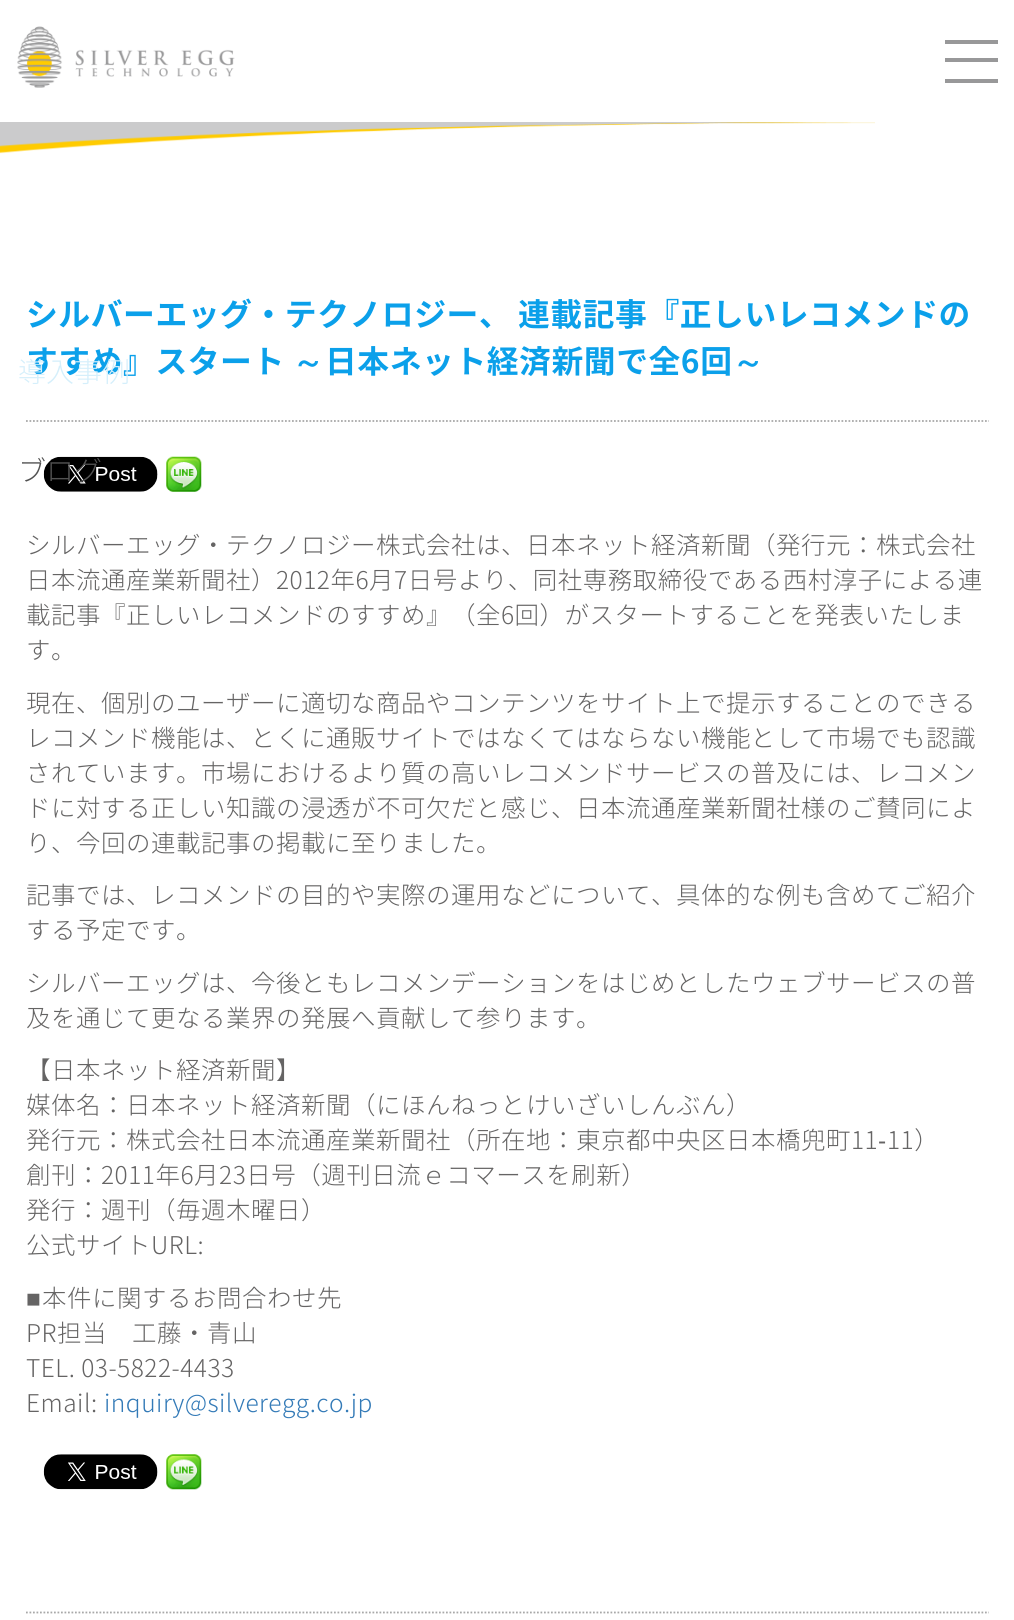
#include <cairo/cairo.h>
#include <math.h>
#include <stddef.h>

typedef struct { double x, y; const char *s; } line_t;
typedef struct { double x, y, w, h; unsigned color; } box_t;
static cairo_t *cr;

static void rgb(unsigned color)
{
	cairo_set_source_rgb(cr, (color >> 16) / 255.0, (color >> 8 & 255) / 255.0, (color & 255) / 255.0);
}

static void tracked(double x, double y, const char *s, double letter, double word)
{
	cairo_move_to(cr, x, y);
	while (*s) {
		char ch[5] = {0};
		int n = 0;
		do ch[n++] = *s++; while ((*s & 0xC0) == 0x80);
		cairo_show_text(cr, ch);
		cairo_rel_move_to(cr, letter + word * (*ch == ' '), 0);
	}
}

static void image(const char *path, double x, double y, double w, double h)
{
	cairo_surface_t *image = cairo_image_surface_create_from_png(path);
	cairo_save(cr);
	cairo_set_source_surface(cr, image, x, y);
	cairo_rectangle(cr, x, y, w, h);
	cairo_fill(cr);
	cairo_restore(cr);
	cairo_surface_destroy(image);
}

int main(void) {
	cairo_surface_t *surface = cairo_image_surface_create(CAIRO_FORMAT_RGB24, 1014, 1620);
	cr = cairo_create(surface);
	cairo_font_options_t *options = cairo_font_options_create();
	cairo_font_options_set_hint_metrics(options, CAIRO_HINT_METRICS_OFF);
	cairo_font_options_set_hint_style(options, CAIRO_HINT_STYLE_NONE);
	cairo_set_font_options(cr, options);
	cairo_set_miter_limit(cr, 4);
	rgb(0xffffff);
	cairo_paint(cr);
	cairo_new_path(cr);
	cairo_move_to(cr, 26, 421);
	cairo_line_to(cr, 989, 421);
	rgb(0xa8a8a8);
	cairo_set_line_width(cr, 1.8);
	cairo_set_dash(cr, (double[]){1.75, 1.75}, 2, 0);
	cairo_stroke(cr);
	cairo_new_path(cr);
	cairo_move_to(cr, 26, 1612.5);
	cairo_line_to(cr, 989, 1612.5);
	cairo_stroke(cr);
	image("img/1.png", 43, 456, 115, 36);
	image("img/2.png", 166, 456, 36, 36);
	image("img/3.png", 43, 1454, 115, 36);
	image("img/4.png", 166, 1454, 36, 36);
	image("img/5.png", 17, 26, 218, 62);
	{
		static const box_t items[] = {
			{945, 40, 53, 4, 0x989899},
			{945, 58, 53, 4, 0x989899},
			{945, 79, 53, 4, 0x989899},
		};
		for (size_t i = 0; i < sizeof items / sizeof *items; i++) {
			rgb(items[i].color);
			cairo_rectangle(cr, items[i].x, items[i].y, items[i].w, items[i].h);
			cairo_fill(cr);
		}
	}
	image("img/6.png", 0, 122, 875, 32);
	cairo_select_font_face(cr, "Noto Sans JP", CAIRO_FONT_SLANT_NORMAL, CAIRO_FONT_WEIGHT_BOLD);
	cairo_set_font_size(cr, 31.85);
	rgb(0x0ba0ea);
	tracked(26, 326, "シルバーエッグ・テクノロジー、 連載記事『正しいレコメンドの", 0.5, -1);
	tracked(26, 373, "すすめ』スタート", 0.5, 0);
	cairo_select_font_face(cr, "WenQuanYi Zen Hei", CAIRO_FONT_SLANT_NORMAL, CAIRO_FONT_WEIGHT_BOLD);
	tracked(292, 373, "～", 0.5, 0);
	cairo_select_font_face(cr, "Noto Sans JP", CAIRO_FONT_SLANT_NORMAL, CAIRO_FONT_WEIGHT_BOLD);
	tracked(325, 373, "日本ネット経済新聞で全6回", 0.5, 0);
	cairo_select_font_face(cr, "WenQuanYi Zen Hei", CAIRO_FONT_SLANT_NORMAL, CAIRO_FONT_WEIGHT_BOLD);
	tracked(732, 373, "～", 0.5, 0);
	cairo_select_font_face(cr, "Noto Sans JP Light", CAIRO_FONT_SLANT_NORMAL, CAIRO_FONT_WEIGHT_NORMAL);
	cairo_set_font_size(cr, 24.5);
	rgb(0x656464);
	{
		static const line_t items[] = {
			{26, 554, "シルバーエッグ・テクノロジー株式会社は、日本ネット経済新聞（発行元：株式会社"},
			{26, 589, "日本流通産業新聞社）2012年6月7日号より、同社専務取締役である西村淳子による連"},
			{26, 624, "載記事『正しいレコメンドのすすめ』（全6回）がスタートすることを発表いたしま"},
			{26, 659, "す。"},
			{26, 712, "現在、個別のユーザーに適切な商品やコンテンツをサイト上で提示することのできる"},
			{26, 747, "レコメンド機能は、とくに通販サイトではなくてはならない機能として市場でも認識"},
			{26, 782, "されています。市場におけるより質の高いレコメンドサービスの普及には、レコメン"},
			{26, 817, "ドに対する正しい知識の浸透が不可欠だと感じ、日本流通産業新聞社様のご賛同によ"},
			{26, 852, "り、今回の連載記事の掲載に至りました。"},
			{26, 904, "記事では、レコメンドの目的や実際の運用などについて、具体的な例も含めてご紹介"},
			{26, 939, "する予定です。"},
			{26, 992, "シルバーエッグは、今後ともレコメンデーションをはじめとしたウェブサービスの普"},
			{26, 1027, "及を通じて更なる業界の発展へ貢献して参ります。"},
			{26, 1079, "【日本ネット経済新聞】"},
			{26, 1114, "媒体名：日本ネット経済新聞（にほんねっとけいざいしんぶん）"},
			{26, 1149, "発行元：株式会社日本流通産業新聞社（所在地：東京都中央区日本橋兜町11"},
		};
		for (size_t i = 0; i < sizeof items / sizeof *items; i++) {
			tracked(items[i].x, items[i].y, items[i].s, 0.5, 0);
		}
	}
	cairo_select_font_face(cr, "Liberation Sans", CAIRO_FONT_SLANT_NORMAL, CAIRO_FONT_WEIGHT_NORMAL);
	tracked(878, 1149, "‐", 0.5, 0);
	cairo_select_font_face(cr, "Noto Sans JP Light", CAIRO_FONT_SLANT_NORMAL, CAIRO_FONT_WEIGHT_NORMAL);
	{
		static const line_t items[] = {
			{887, 1149, "11）"},
			{26, 1184, "創刊：2011年6月23日号（週刊日流ｅコマースを刷新）"},
			{26, 1219, "発行：週刊（毎週木曜日）"},
			{26, 1254, "公式サイトURL:"},
		};
		for (size_t i = 0; i < sizeof items / sizeof *items; i++) {
			tracked(items[i].x, items[i].y, items[i].s, 0.5, 0);
		}
	}
	cairo_select_font_face(cr, "Liberation Sans", CAIRO_FONT_SLANT_NORMAL, CAIRO_FONT_WEIGHT_NORMAL);
	tracked(26, 1307, "■", 0.5, 0);
	cairo_select_font_face(cr, "Noto Sans JP Light", CAIRO_FONT_SLANT_NORMAL, CAIRO_FONT_WEIGHT_NORMAL);
	{
		static const line_t items[] = {
			{42, 1307, "本件に関するお問合わせ先"},
			{26, 1342, "PR担当　工藤・青山"},
			{26, 1377, "TEL. 03-5822-4433"},
			{26, 1412, "Email:"},
		};
		for (size_t i = 0; i < sizeof items / sizeof *items; i++) {
			tracked(items[i].x, items[i].y, items[i].s, 0.5, 0);
		}
	}
	rgb(0x337ab7);
	tracked(104, 1412, "inquiry@silveregg.co.jp", 0.5, 0);
	cairo_set_font_size(cr, 28);
	rgb(0xd5effb);
	cairo_move_to(cr, 18, 382);
	cairo_show_text(cr, "導入事例");
	rgb(0x525252);
	cairo_move_to(cr, 18, 481);
	cairo_show_text(cr, "ブログ");
	cairo_surface_write_to_png(surface, "page.png");
	cairo_font_options_destroy(options);
	cairo_destroy(cr);
	cairo_surface_destroy(surface);
	return 0;
}
